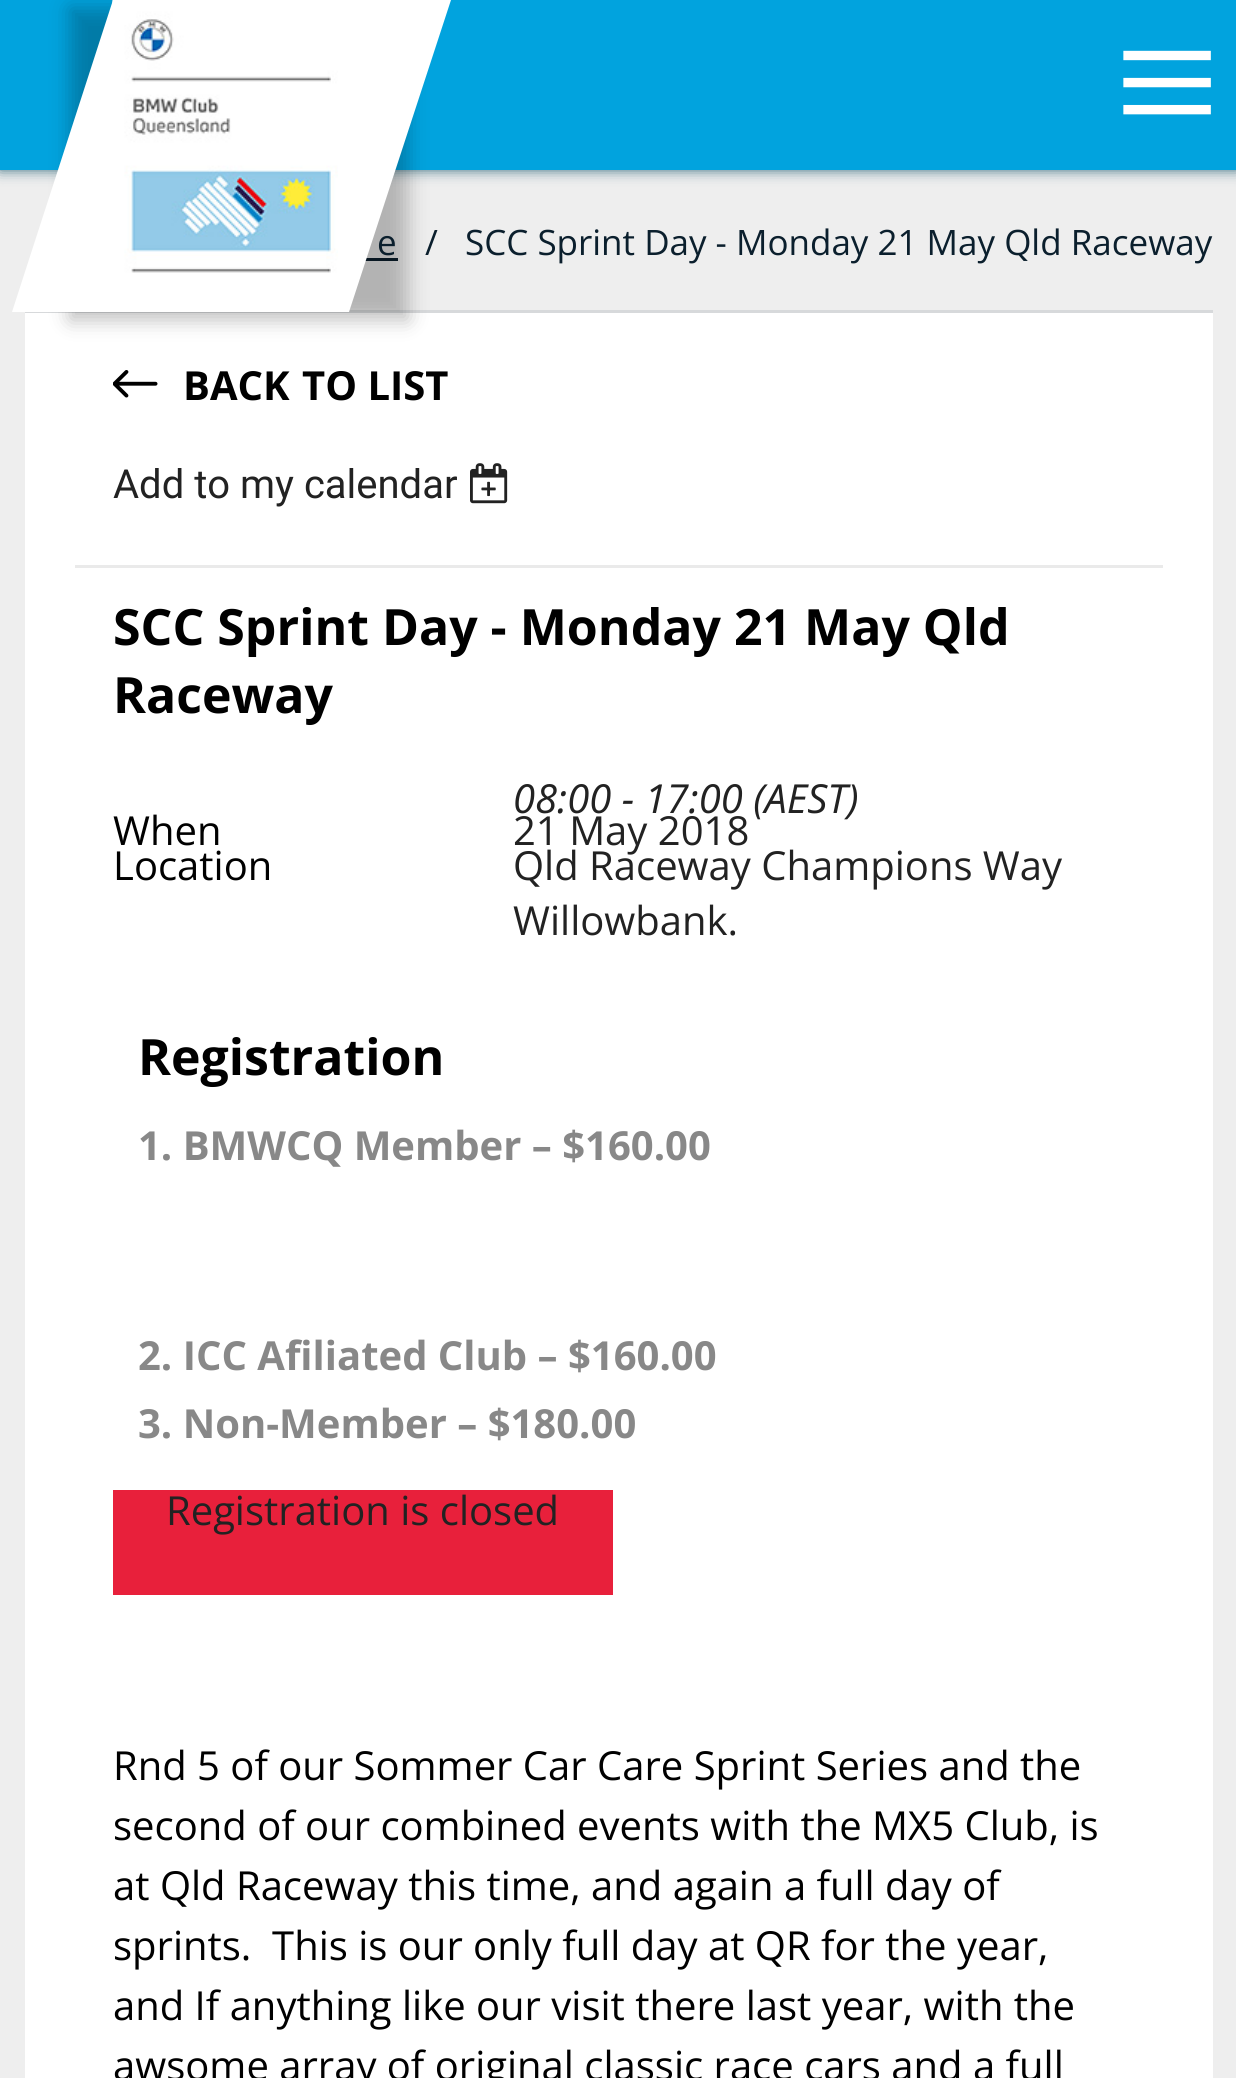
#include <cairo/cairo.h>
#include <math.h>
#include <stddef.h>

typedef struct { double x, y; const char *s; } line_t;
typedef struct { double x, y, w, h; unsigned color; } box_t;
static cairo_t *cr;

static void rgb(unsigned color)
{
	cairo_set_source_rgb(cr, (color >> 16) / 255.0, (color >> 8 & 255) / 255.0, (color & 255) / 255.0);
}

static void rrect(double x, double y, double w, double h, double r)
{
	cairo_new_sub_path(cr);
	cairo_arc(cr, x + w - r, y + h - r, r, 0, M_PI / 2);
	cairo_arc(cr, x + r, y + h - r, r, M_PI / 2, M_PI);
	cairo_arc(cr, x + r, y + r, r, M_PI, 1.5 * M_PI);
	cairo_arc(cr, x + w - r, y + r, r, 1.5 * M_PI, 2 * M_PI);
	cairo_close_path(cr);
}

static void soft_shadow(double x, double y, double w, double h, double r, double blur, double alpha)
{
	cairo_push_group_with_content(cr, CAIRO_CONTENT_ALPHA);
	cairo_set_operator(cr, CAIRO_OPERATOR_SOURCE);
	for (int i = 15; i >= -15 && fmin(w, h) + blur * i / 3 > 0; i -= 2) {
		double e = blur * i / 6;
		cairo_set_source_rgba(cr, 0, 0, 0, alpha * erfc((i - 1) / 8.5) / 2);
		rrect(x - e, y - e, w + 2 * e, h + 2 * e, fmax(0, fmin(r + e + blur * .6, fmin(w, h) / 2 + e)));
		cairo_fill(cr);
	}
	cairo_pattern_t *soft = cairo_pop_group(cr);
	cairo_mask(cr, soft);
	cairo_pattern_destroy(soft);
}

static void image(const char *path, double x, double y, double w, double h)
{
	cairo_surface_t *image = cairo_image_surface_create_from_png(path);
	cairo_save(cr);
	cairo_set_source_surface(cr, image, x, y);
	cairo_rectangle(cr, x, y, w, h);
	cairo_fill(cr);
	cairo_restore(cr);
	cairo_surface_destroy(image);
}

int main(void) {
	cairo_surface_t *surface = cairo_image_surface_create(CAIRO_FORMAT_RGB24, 1236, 2078);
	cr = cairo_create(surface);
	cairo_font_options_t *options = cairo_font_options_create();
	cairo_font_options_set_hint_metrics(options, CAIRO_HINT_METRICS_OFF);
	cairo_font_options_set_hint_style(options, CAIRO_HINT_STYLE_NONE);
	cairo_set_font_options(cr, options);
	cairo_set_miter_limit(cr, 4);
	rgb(0xeeeeee);
	cairo_paint(cr);
	rgb(0x01465f);
	soft_shadow(0, -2, 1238, 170, 0, 7.5, 1);
	{
		static const box_t items[] = {
			{0, 0, 1236, 170, 0x01a3de},
			{25, 310, 1188, 3, 0xd7d9db},
			{365, 258, 33, 3, 0x0b1f2d},
			{25, 313, 1188, 1765, 0xffffff},
		};
		for (size_t i = 0; i < sizeof items / sizeof *items; i++) {
			rgb(items[i].color);
			cairo_rectangle(cr, items[i].x, items[i].y, items[i].w, items[i].h);
			cairo_fill(cr);
		}
	}
	rgb(0x000000);
	soft_shadow(70, 8, 338, 312, 0, 10, 0.25);
	image("img/2.png", 113, 370, 45, 28);
	image("img/3.png", 470, 463, 38, 41);
	rgb(0xeaeaea);
	cairo_rectangle(cr, 75, 565, 1088, 3);
	cairo_fill(cr);
	rgb(0xe8203b);
	cairo_rectangle(cr, 113, 1490, 500, 105);
	cairo_fill(cr);
	cairo_select_font_face(cr, "Liberation Serif", CAIRO_FONT_SLANT_NORMAL, CAIRO_FONT_WEIGHT_NORMAL);
	cairo_set_font_size(cr, 188);
	rgb(0xffffff);
	cairo_move_to(cr, 1114, 145);
	cairo_show_text(cr, "≡");
	cairo_select_font_face(cr, "Open Sans", CAIRO_FONT_SLANT_NORMAL, CAIRO_FONT_WEIGHT_NORMAL);
	cairo_set_font_size(cr, 35);
	rgb(0x0b1f2d);
	cairo_move_to(cr, 377, 255);
	cairo_show_text(cr, "e");
	cairo_move_to(cr, 425, 255);
	cairo_show_text(cr, "/");
	rgb(0xffffff);
	cairo_new_path(cr);
	cairo_move_to(cr, 113, 0);
	cairo_line_to(cr, 451, 0);
	cairo_line_to(cr, 349, 312);
	cairo_line_to(cr, 12, 312);
	cairo_close_path(cr);
	cairo_fill(cr);
	image("img/1.png", 112, 0, 226, 273);
	rgb(0x0b1f2d);
	cairo_move_to(cr, 465, 255);
	cairo_show_text(cr, "SCC Sprint Day - Monday 21 May Qld Raceway");
	cairo_select_font_face(cr, "Open Sans", CAIRO_FONT_SLANT_NORMAL, CAIRO_FONT_WEIGHT_BOLD);
	cairo_set_font_size(cr, 40);
	rgb(0x000000);
	cairo_move_to(cr, 183, 400);
	cairo_show_text(cr, "BACK");
	cairo_move_to(cr, 302, 400);
	cairo_show_text(cr, "TO LIST");
	cairo_select_font_face(cr, "Roboto", CAIRO_FONT_SLANT_NORMAL, CAIRO_FONT_WEIGHT_NORMAL);
	rgb(0x222222);
	cairo_move_to(cr, 113, 498);
	cairo_show_text(cr, "Add to my calendar");
	cairo_select_font_face(cr, "Open Sans", CAIRO_FONT_SLANT_NORMAL, CAIRO_FONT_WEIGHT_BOLD);
	cairo_set_font_size(cr, 50);
	rgb(0x000000);
	cairo_move_to(cr, 113, 645);
	cairo_show_text(cr, "SCC Sprint Day - Monday 21 May Qld");
	cairo_move_to(cr, 113, 713);
	cairo_show_text(cr, "Raceway");
	cairo_select_font_face(cr, "Open Sans", CAIRO_FONT_SLANT_ITALIC, CAIRO_FONT_WEIGHT_NORMAL);
	cairo_set_font_size(cr, 40);
	rgb(0x222222);
	cairo_move_to(cr, 513, 813);
	cairo_show_text(cr, "08:00 - 17:00 (AEST)");
	cairo_select_font_face(cr, "Open Sans", CAIRO_FONT_SLANT_NORMAL, CAIRO_FONT_WEIGHT_NORMAL);
	rgb(0x000000);
	cairo_move_to(cr, 113, 845);
	cairo_show_text(cr, "When");
	rgb(0x222222);
	cairo_move_to(cr, 513, 845);
	cairo_show_text(cr, "21 May 2018");
	rgb(0x000000);
	cairo_move_to(cr, 113, 880);
	cairo_show_text(cr, "Location");
	rgb(0x222222);
	cairo_move_to(cr, 513, 880);
	cairo_show_text(cr, "Qld Raceway Champions Way");
	cairo_move_to(cr, 513, 935);
	cairo_show_text(cr, "Willowbank.");
	cairo_select_font_face(cr, "Open Sans", CAIRO_FONT_SLANT_NORMAL, CAIRO_FONT_WEIGHT_BOLD);
	cairo_set_font_size(cr, 50);
	rgb(0x000000);
	cairo_move_to(cr, 138, 1075);
	cairo_show_text(cr, "Registration");
	cairo_set_font_size(cr, 40);
	rgb(0x888888);
	{
		static const line_t items[] = {
			{138, 1160, "1. BMWCQ Member – $160.00"},
			{138, 1370, "2. ICC Afiliated Club – $160.00"},
			{138, 1438, "3. Non-Member – $180.00"},
		};
		for (size_t i = 0; i < sizeof items / sizeof *items; i++) {
			cairo_move_to(cr, items[i].x, items[i].y);
			cairo_show_text(cr, items[i].s);
		}
	}
	cairo_select_font_face(cr, "Open Sans", CAIRO_FONT_SLANT_NORMAL, CAIRO_FONT_WEIGHT_NORMAL);
	rgb(0x222222);
	cairo_move_to(cr, 166, 1525);
	cairo_show_text(cr, "Registration is closed");
	rgb(0x000000);
	{
		static const line_t items[] = {
			{113, 1780, "Rnd 5 of our Sommer Car Care Sprint Series and the"},
			{113, 1840, "second of our combined events with the MX5 Club, is"},
			{113, 1900, "at Qld Raceway this time, and again a full day of"},
			{113, 1960, "sprints.  This is our only full day at QR for the year,"},
			{113, 2020, "and If anything like our visit there last year, with the"},
			{113, 2080, "awsome array of original classic race cars and a full"},
		};
		for (size_t i = 0; i < sizeof items / sizeof *items; i++) {
			cairo_move_to(cr, items[i].x, items[i].y);
			cairo_show_text(cr, items[i].s);
		}
	}
	cairo_surface_write_to_png(surface, "page.png");
	cairo_font_options_destroy(options);
	cairo_destroy(cr);
	cairo_surface_destroy(surface);
	return 0;
}
